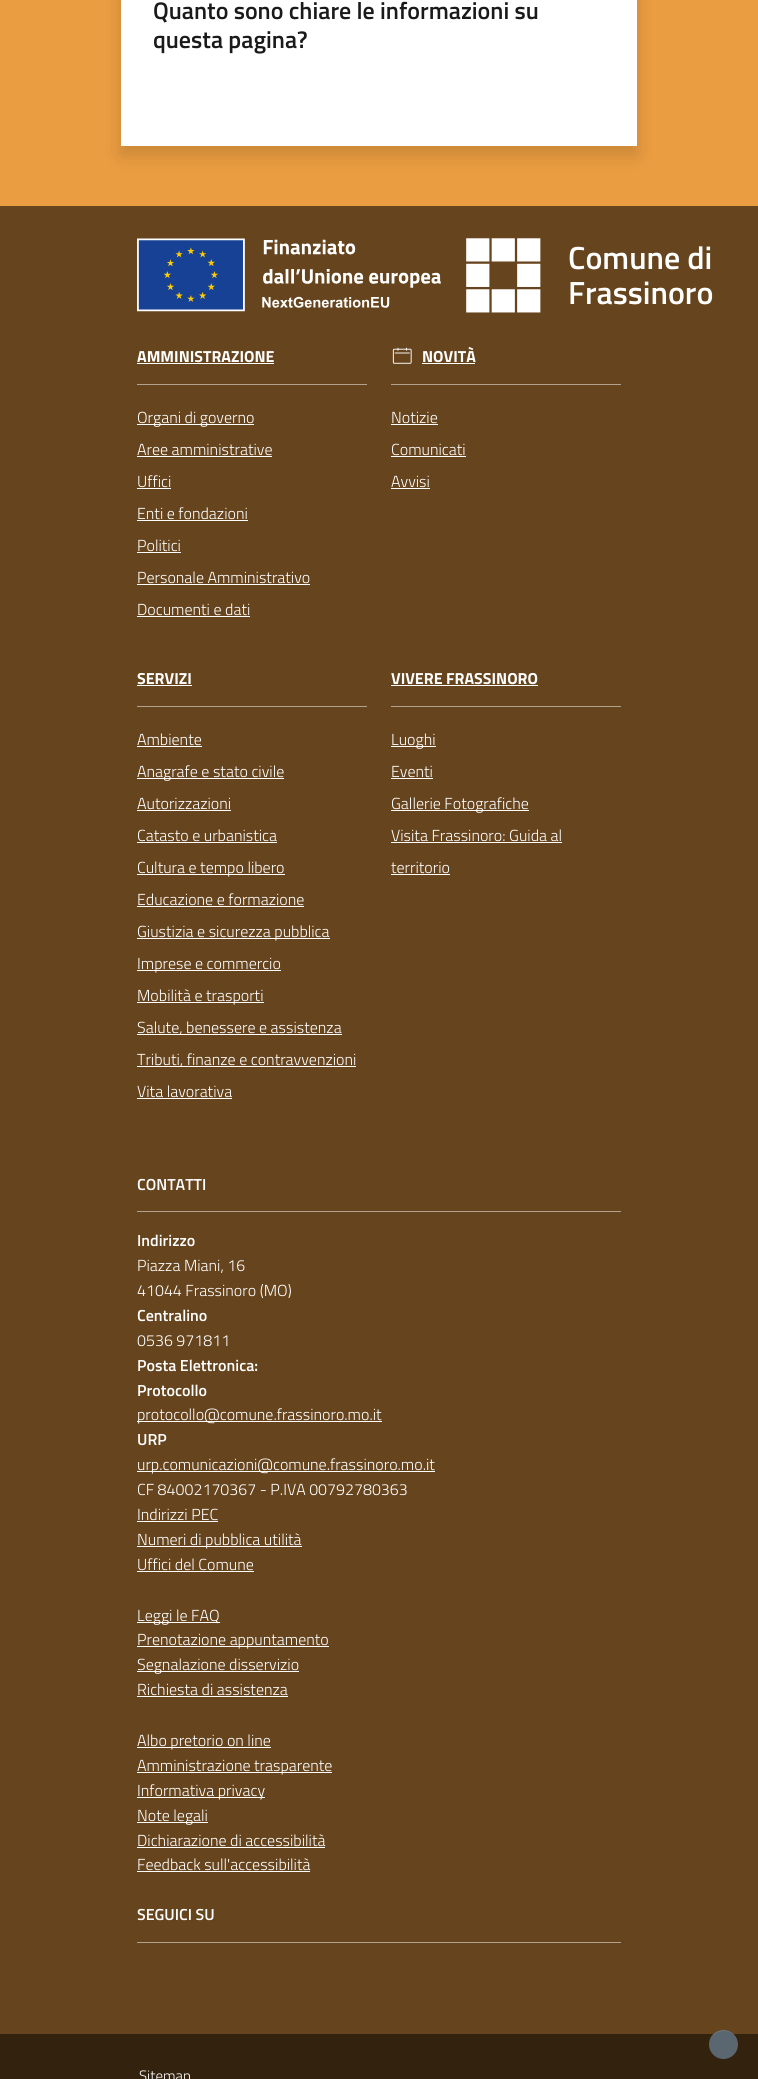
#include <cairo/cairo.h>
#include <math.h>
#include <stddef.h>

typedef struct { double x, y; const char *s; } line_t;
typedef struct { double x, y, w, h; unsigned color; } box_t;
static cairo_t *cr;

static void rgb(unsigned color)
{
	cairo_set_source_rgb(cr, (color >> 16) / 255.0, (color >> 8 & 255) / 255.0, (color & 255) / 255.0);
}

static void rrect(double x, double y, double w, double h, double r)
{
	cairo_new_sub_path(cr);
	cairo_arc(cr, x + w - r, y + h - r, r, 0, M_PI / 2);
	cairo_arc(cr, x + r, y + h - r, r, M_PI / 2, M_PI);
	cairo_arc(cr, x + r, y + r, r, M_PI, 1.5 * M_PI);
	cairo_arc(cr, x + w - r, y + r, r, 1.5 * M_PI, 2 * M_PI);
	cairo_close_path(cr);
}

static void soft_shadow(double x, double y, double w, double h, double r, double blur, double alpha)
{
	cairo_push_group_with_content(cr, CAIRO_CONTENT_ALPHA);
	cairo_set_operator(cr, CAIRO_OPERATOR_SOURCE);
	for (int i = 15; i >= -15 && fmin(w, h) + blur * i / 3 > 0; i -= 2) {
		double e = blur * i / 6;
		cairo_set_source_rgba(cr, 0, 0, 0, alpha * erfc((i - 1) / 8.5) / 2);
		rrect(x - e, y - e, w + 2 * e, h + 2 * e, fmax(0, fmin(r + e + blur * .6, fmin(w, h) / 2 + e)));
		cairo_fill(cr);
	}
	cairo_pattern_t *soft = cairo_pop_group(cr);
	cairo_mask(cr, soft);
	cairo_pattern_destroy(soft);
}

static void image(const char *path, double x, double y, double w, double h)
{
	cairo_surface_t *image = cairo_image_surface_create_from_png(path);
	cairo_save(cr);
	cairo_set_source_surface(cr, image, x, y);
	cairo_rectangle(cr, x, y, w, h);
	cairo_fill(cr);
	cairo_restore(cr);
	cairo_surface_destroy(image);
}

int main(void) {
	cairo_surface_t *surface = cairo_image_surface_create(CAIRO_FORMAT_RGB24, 758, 2079);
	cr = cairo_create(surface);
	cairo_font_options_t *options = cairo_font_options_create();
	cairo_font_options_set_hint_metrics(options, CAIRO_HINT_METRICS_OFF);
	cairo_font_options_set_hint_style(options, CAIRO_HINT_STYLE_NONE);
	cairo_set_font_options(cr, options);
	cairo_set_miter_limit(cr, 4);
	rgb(0xeb9d41);
	cairo_paint(cr);
	rgb(0x000000);
	soft_shadow(121, -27, 516, 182, 0, 9, 0.15);
	rgb(0xffffff);
	cairo_rectangle(cr, 121, 0, 516, 146);
	cairo_fill(cr);
	rgb(0x66441d);
	cairo_rectangle(cr, 0, 206, 758, 1828);
	cairo_fill(cr);
	image("img/1.png", 137, 238, 304, 74);
	image("img/2.png", 466, 238, 75, 75);
	{
		static const box_t items[] = {
			{137, 384, 230, 1, 0xb3a28e},
			{137, 363, 137, 1, 0xffffff},
			{137, 424, 117, 1, 0xffffff},
			{137, 456, 135, 1, 0xffffff},
			{137, 488, 34, 1, 0xffffff},
			{137, 520, 111, 1, 0xffffff},
			{137, 552, 44, 1, 0xffffff},
			{137, 584, 173, 1, 0xffffff},
			{137, 616, 113, 1, 0xffffff},
			{391, 384, 230, 1, 0xb3a28e},
		};
		for (size_t i = 0; i < sizeof items / sizeof *items; i++) {
			rgb(items[i].color);
			cairo_rectangle(cr, items[i].x, items[i].y, items[i].w, items[i].h);
			cairo_fill(cr);
		}
	}
	image("img/3.png", 392, 347, 20, 17);
	{
		static const box_t items[] = {
			{422, 363, 53, 1, 0xffffff},
			{391, 424, 47, 1, 0xffffff},
			{391, 456, 75, 1, 0xffffff},
			{391, 488, 39, 1, 0xffffff},
			{137, 706, 230, 1, 0xb3a28e},
			{137, 685, 55, 1, 0xffffff},
			{137, 746, 65, 1, 0xffffff},
			{137, 778, 147, 1, 0xffffff},
			{137, 810, 94, 1, 0xffffff},
			{137, 842, 140, 1, 0xffffff},
			{137, 874, 148, 1, 0xffffff},
			{137, 906, 167, 1, 0xffffff},
			{137, 938, 193, 1, 0xffffff},
			{137, 970, 144, 1, 0xffffff},
			{137, 1002, 127, 1, 0xffffff},
			{137, 1034, 205, 1, 0xffffff},
			{137, 1066, 219, 1, 0xffffff},
			{137, 1098, 95, 1, 0xffffff},
			{391, 706, 230, 1, 0xb3a28e},
			{391, 685, 147, 1, 0xffffff},
			{391, 746, 45, 1, 0xffffff},
			{391, 778, 42, 1, 0xffffff},
			{391, 810, 138, 1, 0xffffff},
			{391, 842, 171, 1, 0xffffff},
			{391, 874, 59, 1, 0xffffff},
			{137, 1211, 484, 1, 0xb3a28e},
			{137, 1421, 245, 1, 0xffffff},
			{137, 1471, 298, 1, 0xffffff},
			{137, 1521, 81, 1, 0xffffff},
			{137, 1546, 165, 1, 0xffffff},
			{137, 1571, 117, 1, 0xffffff},
			{137, 1622, 83, 1, 0xffffff},
			{137, 1646, 192, 1, 0xffffff},
			{137, 1671, 162, 1, 0xffffff},
			{137, 1696, 151, 1, 0xffffff},
			{137, 1747, 134, 1, 0xffffff},
			{137, 1772, 195, 1, 0xffffff},
			{137, 1797, 128, 1, 0xffffff},
			{137, 1822, 71, 1, 0xffffff},
			{137, 1847, 188, 1, 0xffffff},
			{137, 1871, 173, 1, 0xffffff},
			{137, 1942, 484, 1, 0xb3a28e},
			{0, 2034, 758, 45, 0x33220e},
		};
		for (size_t i = 0; i < sizeof items / sizeof *items; i++) {
			rgb(items[i].color);
			cairo_rectangle(cr, items[i].x, items[i].y, items[i].w, items[i].h);
			cairo_fill(cr);
		}
	}
	rgb(0x5a6771);
	cairo_arc(cr, 723.5, 2044.5, 14.5, 0, 2 * M_PI);
	cairo_fill(cr);
	cairo_set_source_rgba(cr, 1, 1, 1, 0.15);
	cairo_new_path(cr);
	cairo_move_to(cr, 724, 2031);
	cairo_curve_to(cr, 731, 2031, 735.5, 2035, 737, 2040);
	cairo_curve_to(cr, 732, 2024.5, 708.5, 2028.5, 709, 2045);
	cairo_curve_to(cr, 709, 2038, 714, 2031, 724, 2031);
	cairo_close_path(cr);
	cairo_fill(cr);
	cairo_select_font_face(cr, "Titillium Web SemiBold", CAIRO_FONT_SLANT_NORMAL, CAIRO_FONT_WEIGHT_NORMAL);
	cairo_set_font_size(cr, 24);
	rgb(0x1a1a1a);
	cairo_move_to(cr, 153, 19);
	cairo_show_text(cr, "Quanto sono chiare le informazioni su");
	cairo_move_to(cr, 153, 48);
	cairo_show_text(cr, "questa pagina?");
	cairo_set_font_size(cr, 32);
	rgb(0xffffff);
	cairo_move_to(cr, 568, 269);
	cairo_show_text(cr, "Comune di");
	cairo_move_to(cr, 568, 304);
	cairo_show_text(cr, "Frassinoro");
	cairo_select_font_face(cr, "Titillium Web", CAIRO_FONT_SLANT_NORMAL, CAIRO_FONT_WEIGHT_BOLD);
	cairo_set_font_size(cr, 16);
	cairo_move_to(cr, 137, 362);
	cairo_show_text(cr, "AMMINISTRAZIONE");
	cairo_select_font_face(cr, "Titillium Web Light", CAIRO_FONT_SLANT_NORMAL, CAIRO_FONT_WEIGHT_NORMAL);
	{
		static const line_t items[] = {
			{137, 423, "Organi di governo"},
			{137, 455, "Aree amministrative"},
			{137, 487, "Uffici"},
			{137, 519, "Enti e fondazioni"},
			{137, 551, "Politici"},
			{137, 583, "Personale Amministrativo"},
			{137, 615, "Documenti e dati"},
		};
		for (size_t i = 0; i < sizeof items / sizeof *items; i++) {
			cairo_move_to(cr, items[i].x, items[i].y);
			cairo_show_text(cr, items[i].s);
		}
	}
	cairo_select_font_face(cr, "Titillium Web", CAIRO_FONT_SLANT_NORMAL, CAIRO_FONT_WEIGHT_BOLD);
	cairo_move_to(cr, 422, 362);
	cairo_show_text(cr, "NOVITÀ");
	cairo_select_font_face(cr, "Titillium Web Light", CAIRO_FONT_SLANT_NORMAL, CAIRO_FONT_WEIGHT_NORMAL);
	{
		static const line_t items[] = {
			{391, 423, "Notizie"},
			{391, 455, "Comunicati"},
			{391, 487, "Avvisi"},
		};
		for (size_t i = 0; i < sizeof items / sizeof *items; i++) {
			cairo_move_to(cr, items[i].x, items[i].y);
			cairo_show_text(cr, items[i].s);
		}
	}
	cairo_select_font_face(cr, "Titillium Web", CAIRO_FONT_SLANT_NORMAL, CAIRO_FONT_WEIGHT_BOLD);
	cairo_move_to(cr, 137, 684);
	cairo_show_text(cr, "SERVIZI");
	cairo_select_font_face(cr, "Titillium Web Light", CAIRO_FONT_SLANT_NORMAL, CAIRO_FONT_WEIGHT_NORMAL);
	{
		static const line_t items[] = {
			{137, 745, "Ambiente"},
			{137, 777, "Anagrafe e stato civile"},
			{137, 809, "Autorizzazioni"},
			{137, 841, "Catasto e urbanistica"},
			{137, 873, "Cultura e tempo libero"},
			{137, 905, "Educazione e formazione"},
			{137, 937, "Giustizia e sicurezza pubblica"},
			{137, 969, "Imprese e commercio"},
			{137, 1001, "Mobilità e trasporti"},
			{137, 1033, "Salute, benessere e assistenza"},
			{137, 1065, "Tributi, finanze e contravvenzioni"},
			{137, 1097, "Vita lavorativa"},
		};
		for (size_t i = 0; i < sizeof items / sizeof *items; i++) {
			cairo_move_to(cr, items[i].x, items[i].y);
			cairo_show_text(cr, items[i].s);
		}
	}
	cairo_select_font_face(cr, "Titillium Web", CAIRO_FONT_SLANT_NORMAL, CAIRO_FONT_WEIGHT_BOLD);
	cairo_move_to(cr, 391, 684);
	cairo_show_text(cr, "VIVERE FRASSINORO");
	cairo_select_font_face(cr, "Titillium Web Light", CAIRO_FONT_SLANT_NORMAL, CAIRO_FONT_WEIGHT_NORMAL);
	{
		static const line_t items[] = {
			{391, 745, "Luoghi"},
			{391, 777, "Eventi"},
			{391, 809, "Gallerie Fotografiche"},
			{391, 841, "Visita Frassinoro: Guida al"},
			{391, 873, "territorio"},
		};
		for (size_t i = 0; i < sizeof items / sizeof *items; i++) {
			cairo_move_to(cr, items[i].x, items[i].y);
			cairo_show_text(cr, items[i].s);
		}
	}
	cairo_select_font_face(cr, "Titillium Web SemiBold", CAIRO_FONT_SLANT_NORMAL, CAIRO_FONT_WEIGHT_NORMAL);
	cairo_move_to(cr, 137, 1190);
	cairo_show_text(cr, "CONTATTI");
	cairo_move_to(cr, 137, 1246);
	cairo_show_text(cr, "Indirizzo");
	cairo_select_font_face(cr, "Titillium Web Light", CAIRO_FONT_SLANT_NORMAL, CAIRO_FONT_WEIGHT_NORMAL);
	cairo_move_to(cr, 137, 1271);
	cairo_show_text(cr, "Piazza Miani, 16");
	cairo_move_to(cr, 137, 1296);
	cairo_show_text(cr, "41044 Frassinoro (MO)");
	cairo_select_font_face(cr, "Titillium Web SemiBold", CAIRO_FONT_SLANT_NORMAL, CAIRO_FONT_WEIGHT_NORMAL);
	cairo_move_to(cr, 137, 1321);
	cairo_show_text(cr, "Centralino");
	cairo_select_font_face(cr, "Titillium Web Light", CAIRO_FONT_SLANT_NORMAL, CAIRO_FONT_WEIGHT_NORMAL);
	cairo_move_to(cr, 137, 1346);
	cairo_show_text(cr, "0536 971811");
	cairo_select_font_face(cr, "Titillium Web SemiBold", CAIRO_FONT_SLANT_NORMAL, CAIRO_FONT_WEIGHT_NORMAL);
	cairo_move_to(cr, 137, 1371);
	cairo_show_text(cr, "Posta Elettronica:");
	cairo_move_to(cr, 137, 1396);
	cairo_show_text(cr, "Protocollo");
	cairo_select_font_face(cr, "Titillium Web Light", CAIRO_FONT_SLANT_NORMAL, CAIRO_FONT_WEIGHT_NORMAL);
	cairo_move_to(cr, 137, 1420);
	cairo_show_text(cr, "protocollo@comune.frassinoro.mo.it");
	cairo_select_font_face(cr, "Titillium Web SemiBold", CAIRO_FONT_SLANT_NORMAL, CAIRO_FONT_WEIGHT_NORMAL);
	cairo_move_to(cr, 137, 1445);
	cairo_show_text(cr, "URP");
	cairo_select_font_face(cr, "Titillium Web Light", CAIRO_FONT_SLANT_NORMAL, CAIRO_FONT_WEIGHT_NORMAL);
	{
		static const line_t items[] = {
			{137, 1470, "urp.comunicazioni@comune.frassinoro.mo.it"},
			{137, 1495, "CF 84002170367 - P.IVA 00792780363"},
			{137, 1520, "Indirizzi PEC"},
			{137, 1545, "Numeri di pubblica utilità"},
			{137, 1570, "Uffici del Comune"},
			{137, 1621, "Leggi le FAQ"},
			{137, 1645, "Prenotazione appuntamento"},
			{137, 1670, "Segnalazione disservizio"},
			{137, 1695, "Richiesta di assistenza"},
			{137, 1746, "Albo pretorio on line"},
			{137, 1771, "Amministrazione trasparente"},
			{137, 1796, "Informativa privacy"},
			{137, 1821, "Note legali"},
			{137, 1846, "Dichiarazione di accessibilità"},
			{137, 1870, "Feedback sull'accessibilità"},
		};
		for (size_t i = 0; i < sizeof items / sizeof *items; i++) {
			cairo_move_to(cr, items[i].x, items[i].y);
			cairo_show_text(cr, items[i].s);
		}
	}
	cairo_select_font_face(cr, "Titillium Web SemiBold", CAIRO_FONT_SLANT_NORMAL, CAIRO_FONT_WEIGHT_NORMAL);
	cairo_move_to(cr, 137, 1920);
	cairo_show_text(cr, "SEGUICI SU");
	cairo_select_font_face(cr, "Titillium Web Light", CAIRO_FONT_SLANT_NORMAL, CAIRO_FONT_WEIGHT_NORMAL);
	cairo_set_font_size(cr, 15);
	cairo_move_to(cr, 139, 2081);
	cairo_show_text(cr, "Sitemap");
	cairo_surface_write_to_png(surface, "page.png");
	cairo_font_options_destroy(options);
	cairo_destroy(cr);
	cairo_surface_destroy(surface);
	return 0;
}
